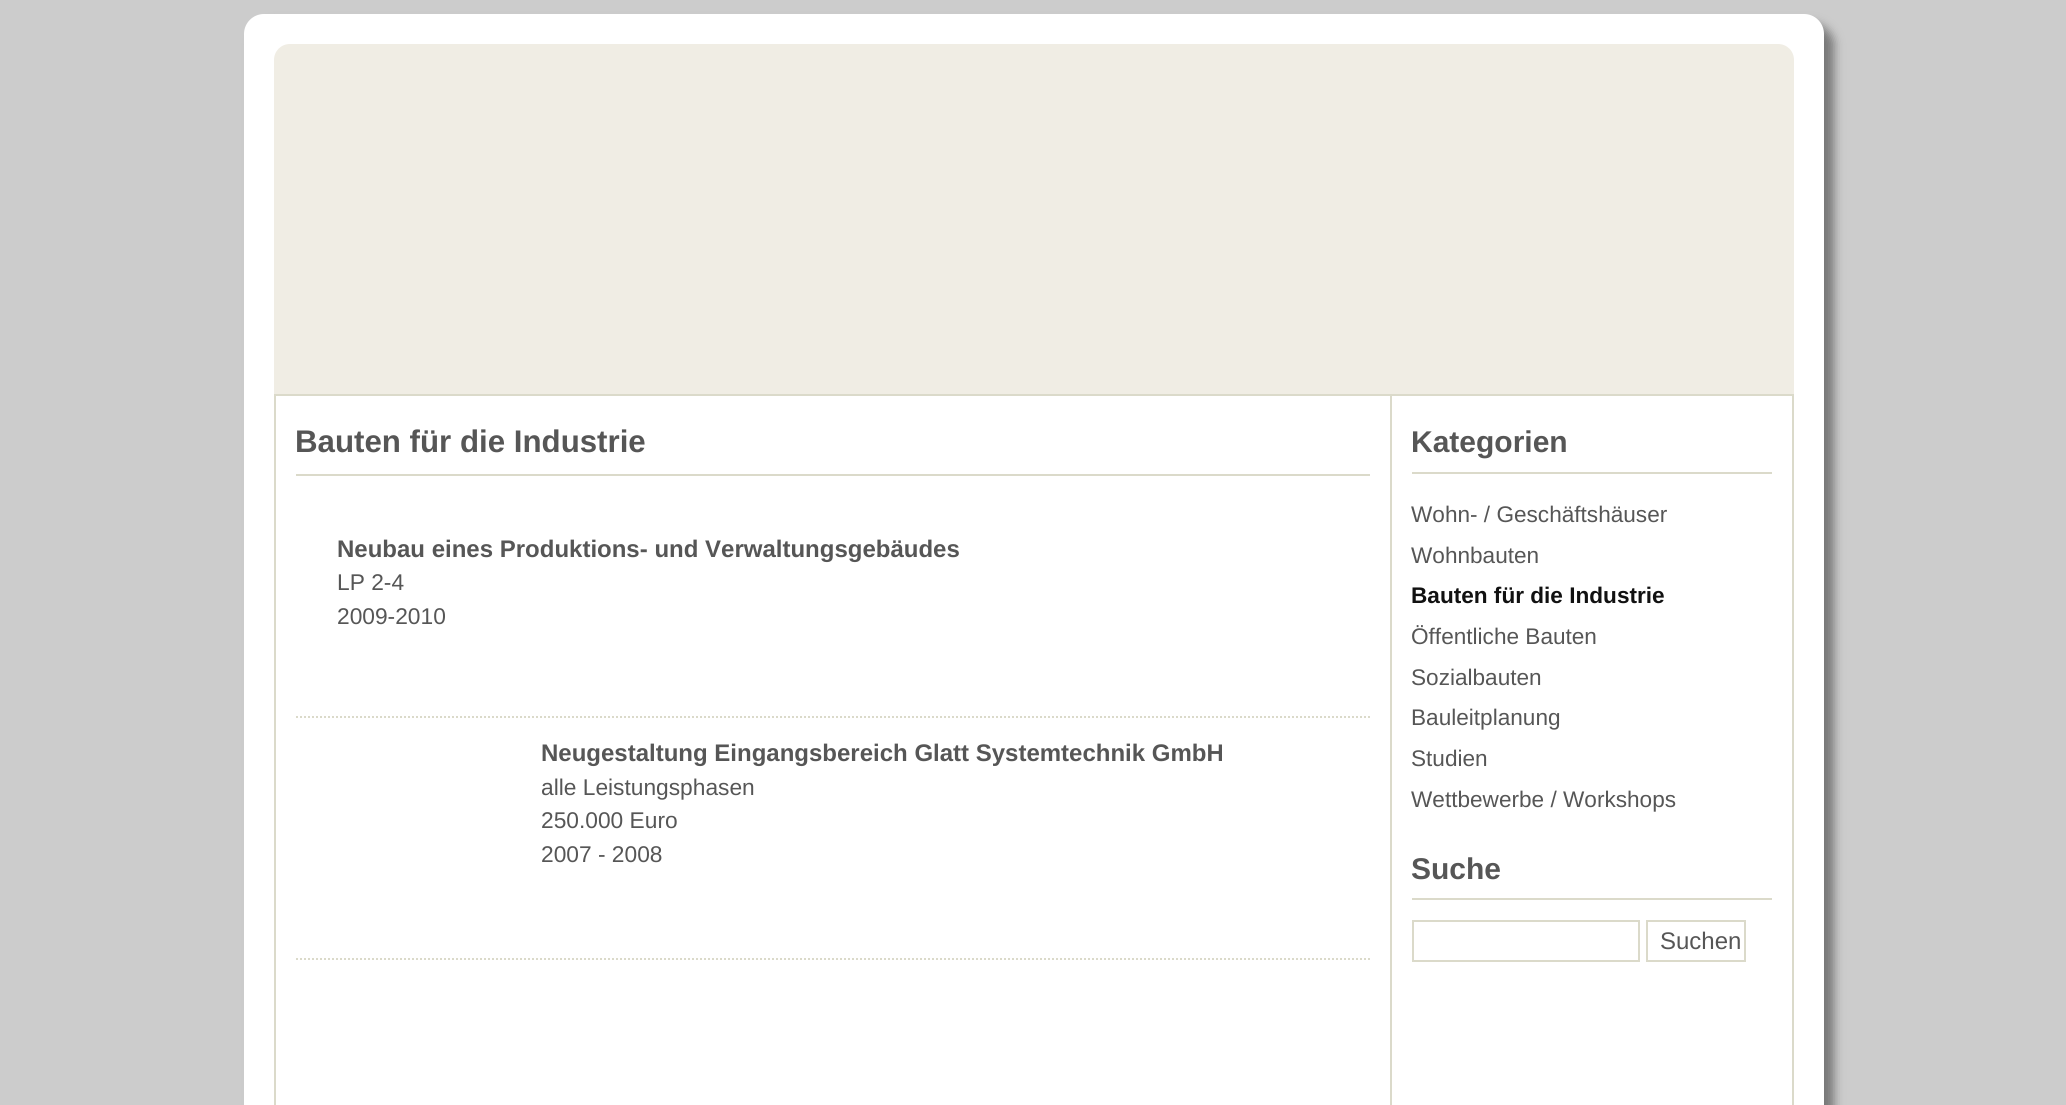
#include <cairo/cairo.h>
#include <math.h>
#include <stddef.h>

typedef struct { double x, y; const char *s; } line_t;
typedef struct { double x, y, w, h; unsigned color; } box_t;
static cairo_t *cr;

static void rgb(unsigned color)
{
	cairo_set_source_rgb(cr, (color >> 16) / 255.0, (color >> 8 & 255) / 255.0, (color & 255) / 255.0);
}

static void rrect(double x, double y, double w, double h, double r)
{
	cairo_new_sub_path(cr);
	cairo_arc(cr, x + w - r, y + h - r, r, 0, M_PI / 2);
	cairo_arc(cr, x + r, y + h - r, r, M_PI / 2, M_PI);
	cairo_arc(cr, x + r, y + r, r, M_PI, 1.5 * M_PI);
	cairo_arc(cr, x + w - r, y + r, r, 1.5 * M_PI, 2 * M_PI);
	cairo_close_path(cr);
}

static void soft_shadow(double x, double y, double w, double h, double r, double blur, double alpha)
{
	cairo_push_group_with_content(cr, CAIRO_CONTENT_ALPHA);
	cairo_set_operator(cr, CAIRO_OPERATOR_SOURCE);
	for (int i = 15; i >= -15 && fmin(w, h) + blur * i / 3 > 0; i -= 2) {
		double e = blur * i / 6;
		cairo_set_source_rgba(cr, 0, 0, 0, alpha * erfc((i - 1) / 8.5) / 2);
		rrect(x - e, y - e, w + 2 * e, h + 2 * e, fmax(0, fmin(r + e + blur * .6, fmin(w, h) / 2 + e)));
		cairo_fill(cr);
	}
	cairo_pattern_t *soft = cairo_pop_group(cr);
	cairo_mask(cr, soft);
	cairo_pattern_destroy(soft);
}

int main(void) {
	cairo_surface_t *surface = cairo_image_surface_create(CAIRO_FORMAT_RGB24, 2066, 1105);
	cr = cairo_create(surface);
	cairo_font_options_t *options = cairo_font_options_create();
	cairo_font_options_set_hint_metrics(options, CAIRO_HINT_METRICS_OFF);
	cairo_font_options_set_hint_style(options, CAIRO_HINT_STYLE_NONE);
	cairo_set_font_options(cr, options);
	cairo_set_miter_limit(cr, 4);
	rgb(0xcccccc);
	cairo_paint(cr);
	rgb(0x777777);
	soft_shadow(254, 24, 1580, 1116, 20, 5, 1);
	rgb(0xffffff);
	cairo_new_path(cr);
	cairo_move_to(cr, 274, 44);
	cairo_line_to(cr, 1794, 44);
	cairo_line_to(cr, 1794, 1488);
	cairo_line_to(cr, 274, 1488);
	cairo_line_to(cr, 274, 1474);
	cairo_close_path(cr);
	cairo_fill(cr);
	rrect(247, 17, 1574, 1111, 17);
	cairo_set_line_width(cr, 6);
	cairo_stroke(cr);
	{
		static const box_t items[] = {
			{254, 20, 1560, 24, 0xffffff},
			{1794, 24, 24, 1081, 0xffffff},
			{250, 24, 24, 1081, 0xffffff},
		};
		for (size_t i = 0; i < sizeof items / sizeof *items; i++) {
			rgb(items[i].color);
			cairo_rectangle(cr, items[i].x, items[i].y, items[i].w, items[i].h);
			cairo_fill(cr);
		}
	}
	rgb(0xf0ede4);
	cairo_new_path(cr);
	cairo_move_to(cr, 290, 44);
	cairo_line_to(cr, 1778, 44);
	cairo_curve_to(cr, 1787, 44, 1794, 51, 1794, 60);
	cairo_line_to(cr, 1794, 394);
	cairo_line_to(cr, 274, 394);
	cairo_line_to(cr, 274, 60);
	cairo_curve_to(cr, 274, 51, 281, 44, 290, 44);
	cairo_close_path(cr);
	cairo_fill(cr);
	cairo_rectangle(cr, 275, 395, 1518, 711);
	rgb(0xdbdaca);
	cairo_set_line_width(cr, 2);
	cairo_stroke(cr);
	cairo_rectangle(cr, 1390, 396, 2, 709);
	cairo_fill(cr);
	cairo_rectangle(cr, 296, 474, 1074, 2);
	cairo_fill(cr);
	cairo_new_path(cr);
	cairo_move_to(cr, 296, 717);
	cairo_line_to(cr, 1370, 717);
	cairo_set_dash(cr, (double[]){2, 2}, 2, 0);
	cairo_stroke(cr);
	cairo_new_path(cr);
	cairo_move_to(cr, 296, 959);
	cairo_line_to(cr, 1370, 959);
	cairo_stroke(cr);
	cairo_rectangle(cr, 1412, 472, 360, 2);
	cairo_fill(cr);
	cairo_rectangle(cr, 1412, 898, 360, 2);
	cairo_fill(cr);
	cairo_rectangle(cr, 1413, 921, 226, 40);
	cairo_set_dash(cr, NULL, 0, 0);
	cairo_stroke(cr);
	cairo_rectangle(cr, 1647, 921, 98, 40);
	cairo_stroke(cr);
	cairo_select_font_face(cr, "Liberation Sans", CAIRO_FONT_SLANT_NORMAL, CAIRO_FONT_WEIGHT_BOLD);
	cairo_set_font_size(cr, 31.25);
	rgb(0x565656);
	cairo_move_to(cr, 295, 452);
	cairo_show_text(cr, "Bauten für die Industrie");
	cairo_set_font_size(cr, 24);
	cairo_move_to(cr, 337, 557);
	cairo_show_text(cr, "Neubau eines Produktions- und Verwaltungsgebäudes");
	cairo_select_font_face(cr, "Liberation Sans", CAIRO_FONT_SLANT_NORMAL, CAIRO_FONT_WEIGHT_NORMAL);
	cairo_set_font_size(cr, 22.75);
	cairo_move_to(cr, 337, 590);
	cairo_show_text(cr, "LP 2-4");
	cairo_move_to(cr, 337, 624);
	cairo_show_text(cr, "2009-2010");
	cairo_select_font_face(cr, "Liberation Sans", CAIRO_FONT_SLANT_NORMAL, CAIRO_FONT_WEIGHT_BOLD);
	cairo_set_font_size(cr, 24);
	cairo_move_to(cr, 541, 761);
	cairo_show_text(cr, "Neugestaltung Eingangsbereich Glatt Systemtechnik GmbH");
	cairo_select_font_face(cr, "Liberation Sans", CAIRO_FONT_SLANT_NORMAL, CAIRO_FONT_WEIGHT_NORMAL);
	cairo_set_font_size(cr, 22.75);
	{
		static const line_t items[] = {
			{541, 795, "alle Leistungsphasen"},
			{541, 828, "250.000 Euro"},
			{541, 862, "2007 - 2008"},
		};
		for (size_t i = 0; i < sizeof items / sizeof *items; i++) {
			cairo_move_to(cr, items[i].x, items[i].y);
			cairo_show_text(cr, items[i].s);
		}
	}
	cairo_select_font_face(cr, "Liberation Sans", CAIRO_FONT_SLANT_NORMAL, CAIRO_FONT_WEIGHT_BOLD);
	cairo_set_font_size(cr, 30);
	cairo_move_to(cr, 1411, 452);
	cairo_show_text(cr, "Kategorien");
	cairo_select_font_face(cr, "Liberation Sans", CAIRO_FONT_SLANT_NORMAL, CAIRO_FONT_WEIGHT_NORMAL);
	cairo_set_font_size(cr, 22.6);
	cairo_move_to(cr, 1411, 522);
	cairo_show_text(cr, "Wohn- / Geschäftshäuser");
	cairo_move_to(cr, 1411, 563);
	cairo_show_text(cr, "Wohnbauten");
	cairo_select_font_face(cr, "Liberation Sans", CAIRO_FONT_SLANT_NORMAL, CAIRO_FONT_WEIGHT_BOLD);
	rgb(0x111111);
	cairo_move_to(cr, 1411, 603);
	cairo_show_text(cr, "Bauten für die Industrie");
	cairo_select_font_face(cr, "Liberation Sans", CAIRO_FONT_SLANT_NORMAL, CAIRO_FONT_WEIGHT_NORMAL);
	rgb(0x565656);
	{
		static const line_t items[] = {
			{1411, 644, "Öffentliche Bauten"},
			{1411, 685, "Sozialbauten"},
			{1411, 725, "Bauleitplanung"},
			{1411, 766, "Studien"},
			{1411, 807, "Wettbewerbe / Workshops"},
		};
		for (size_t i = 0; i < sizeof items / sizeof *items; i++) {
			cairo_move_to(cr, items[i].x, items[i].y);
			cairo_show_text(cr, items[i].s);
		}
	}
	cairo_select_font_face(cr, "Liberation Sans", CAIRO_FONT_SLANT_NORMAL, CAIRO_FONT_WEIGHT_BOLD);
	cairo_set_font_size(cr, 30);
	cairo_move_to(cr, 1411, 879);
	cairo_show_text(cr, "Suche");
	cairo_select_font_face(cr, "Liberation Sans", CAIRO_FONT_SLANT_NORMAL, CAIRO_FONT_WEIGHT_NORMAL);
	cairo_set_font_size(cr, 24);
	cairo_move_to(cr, 1660, 949);
	cairo_show_text(cr, "Suchen");
	cairo_surface_write_to_png(surface, "page.png");
	cairo_font_options_destroy(options);
	cairo_destroy(cr);
	cairo_surface_destroy(surface);
	return 0;
}
